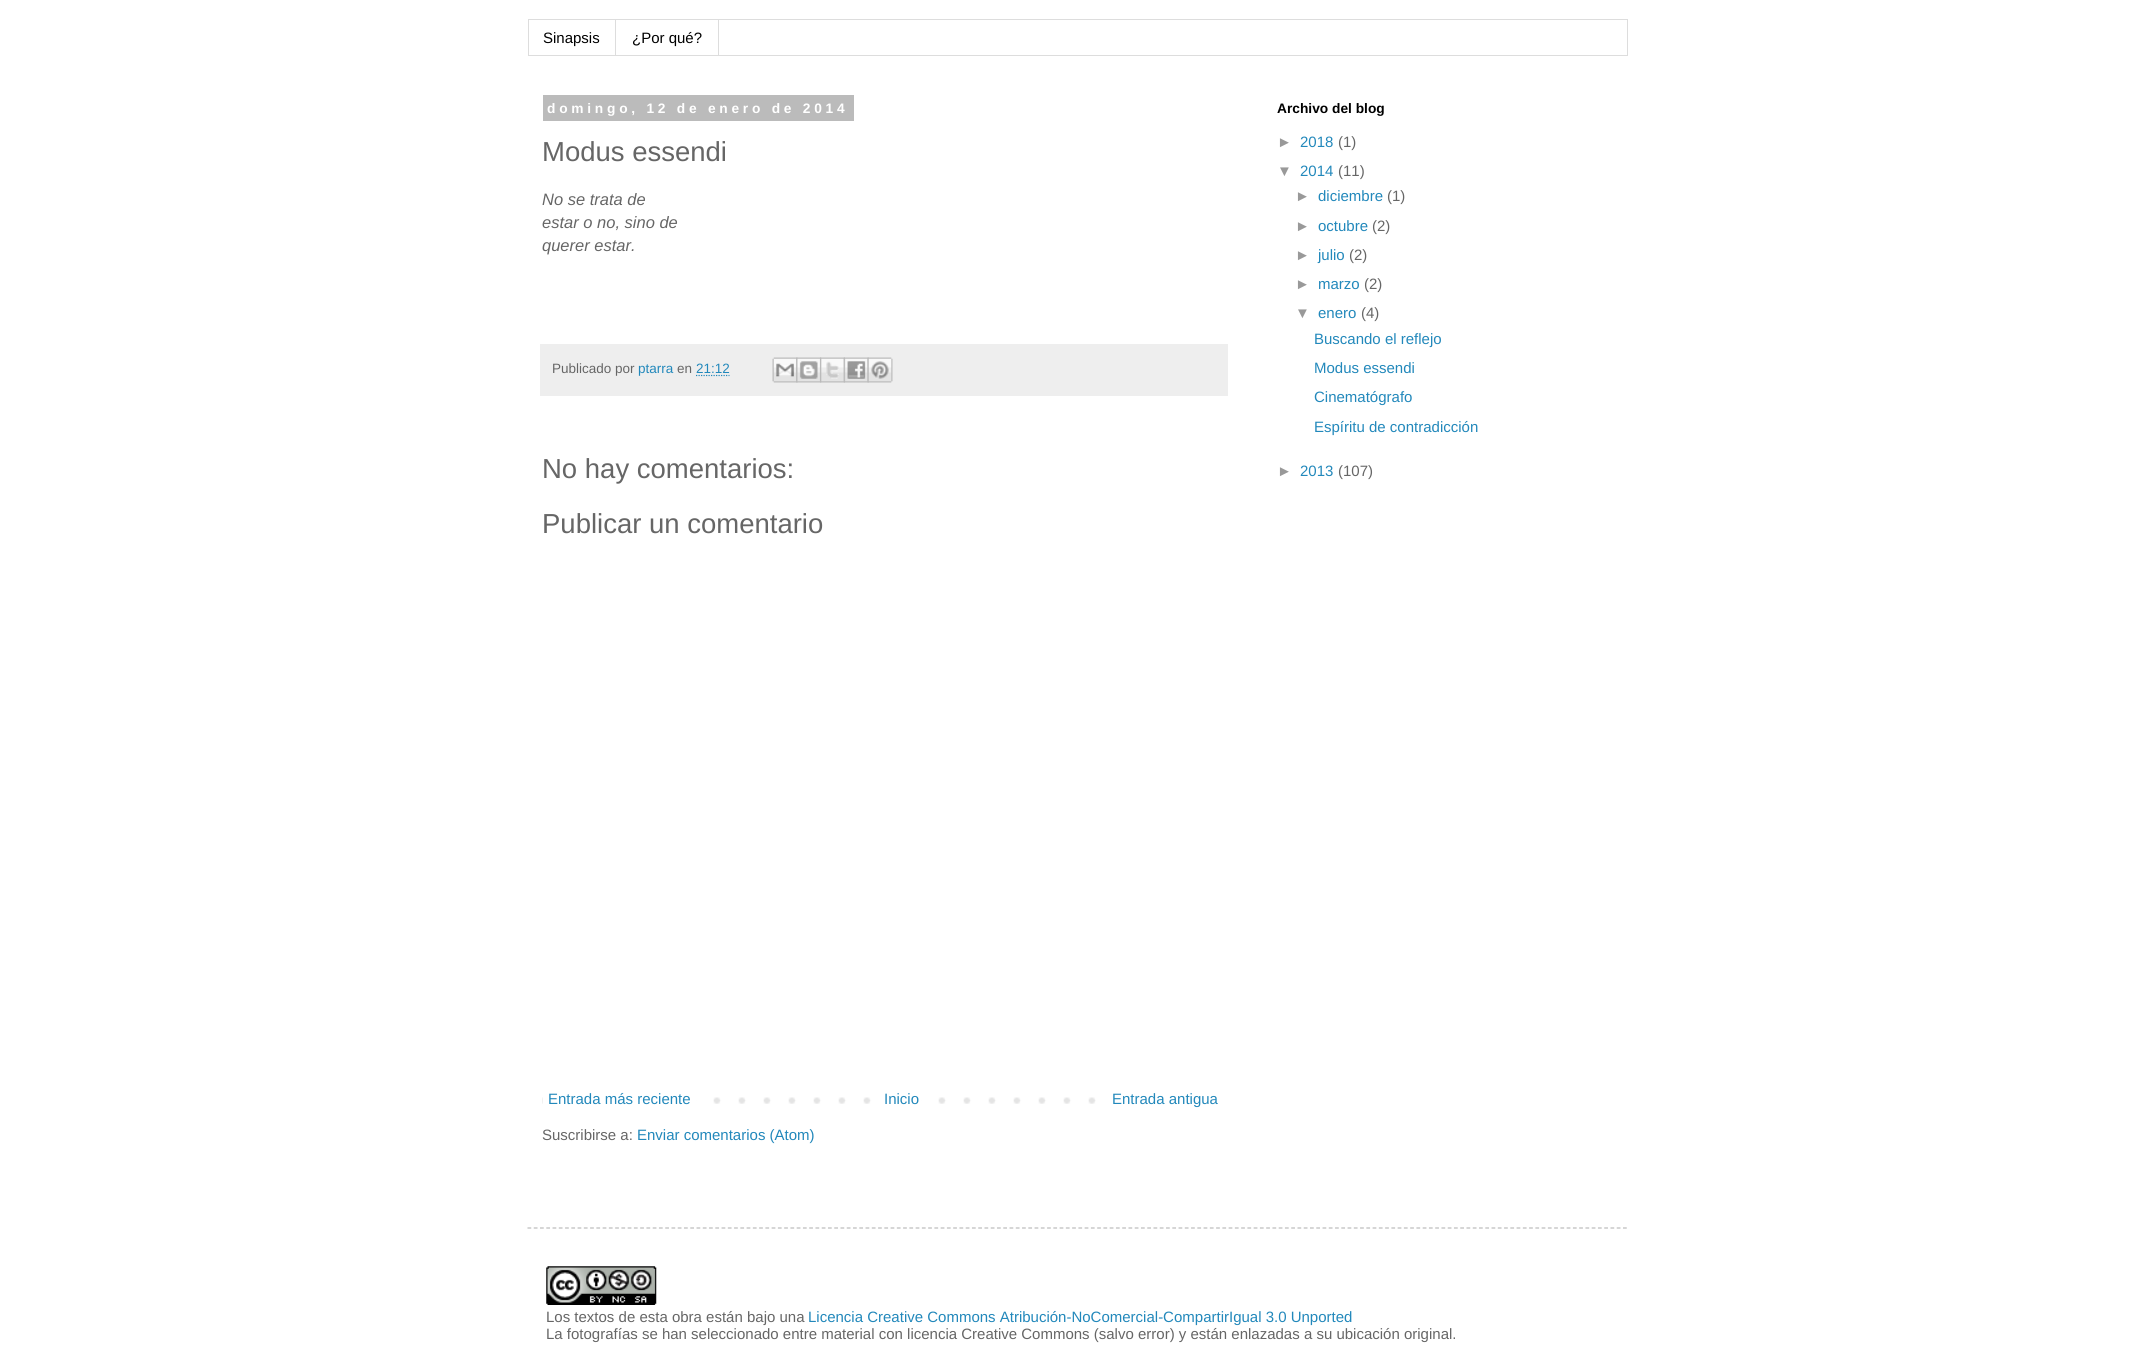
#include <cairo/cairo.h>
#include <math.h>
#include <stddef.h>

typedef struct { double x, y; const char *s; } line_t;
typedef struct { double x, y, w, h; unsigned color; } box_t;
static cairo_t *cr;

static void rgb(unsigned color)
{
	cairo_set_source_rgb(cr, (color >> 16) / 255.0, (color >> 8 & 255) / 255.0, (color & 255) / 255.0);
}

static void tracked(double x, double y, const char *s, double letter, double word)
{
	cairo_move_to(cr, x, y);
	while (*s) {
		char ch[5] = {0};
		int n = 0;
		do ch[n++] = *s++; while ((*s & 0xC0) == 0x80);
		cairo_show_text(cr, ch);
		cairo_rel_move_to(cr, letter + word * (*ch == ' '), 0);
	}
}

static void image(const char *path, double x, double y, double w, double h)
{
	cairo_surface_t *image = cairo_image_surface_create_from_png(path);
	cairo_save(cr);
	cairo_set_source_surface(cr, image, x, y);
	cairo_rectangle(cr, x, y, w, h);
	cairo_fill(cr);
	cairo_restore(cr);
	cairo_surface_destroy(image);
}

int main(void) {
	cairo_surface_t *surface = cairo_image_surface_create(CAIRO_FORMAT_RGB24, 2153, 1367);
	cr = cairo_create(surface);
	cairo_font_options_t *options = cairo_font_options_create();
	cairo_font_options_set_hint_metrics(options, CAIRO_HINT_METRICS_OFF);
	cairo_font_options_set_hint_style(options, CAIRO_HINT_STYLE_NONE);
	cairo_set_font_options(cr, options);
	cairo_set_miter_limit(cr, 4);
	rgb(0xffffff);
	cairo_paint(cr);
	cairo_rectangle(cr, 528.5, 19.5, 1099, 36);
	rgb(0xdddddd);
	cairo_set_line_width(cr, 1);
	cairo_stroke(cr);
	{
		static const box_t items[] = {
			{615, 20, 1, 35, 0xdddddd},
			{718, 20, 1, 35, 0xdddddd},
			{543, 95, 311, 26, 0xbbbbbb},
			{540, 344, 688, 52, 0xeeeeee},
		};
		for (size_t i = 0; i < sizeof items / sizeof *items; i++) {
			rgb(items[i].color);
			cairo_rectangle(cr, items[i].x, items[i].y, items[i].w, items[i].h);
			cairo_fill(cr);
		}
	}
	cairo_new_path(cr);
	cairo_move_to(cr, 696, 375.5);
	cairo_line_to(cr, 729.5, 375.5);
	rgb(0x2288bb);
	cairo_set_line_width(cr, 1.2);
	cairo_set_dash(cr, (double[]){1.25, 1.25}, 2, 0);
	cairo_stroke(cr);
	image("img/1.png", 772, 357, 26, 26);
	image("img/2.png", 796, 357, 26, 26);
	image("img/3.png", 820, 357, 25, 26);
	image("img/4.png", 843, 357, 26, 26);
	image("img/5.png", 867, 357, 26, 26);
	image("img/6.png", 542, 1097, 554, 7);
	rgb(0xffffff);
	cairo_rectangle(cr, 543, 1097, 153, 7);
	cairo_fill(cr);
	cairo_rectangle(cr, 888, 1097, 33, 7);
	cairo_fill(cr);
	cairo_new_path(cr);
	cairo_move_to(cr, 527.5, 1228);
	cairo_line_to(cr, 1627.5, 1228);
	rgb(0xbbbbbb);
	cairo_set_dash(cr, (double[]){3.75, 2.51}, 2, 0);
	cairo_stroke(cr);
	image("img/7.png", 546, 1266, 111, 39);
	cairo_select_font_face(cr, "Liberation Sans", CAIRO_FONT_SLANT_NORMAL, CAIRO_FONT_WEIGHT_NORMAL);
	cairo_set_font_size(cr, 15);
	rgb(0x000000);
	cairo_move_to(cr, 543, 43);
	cairo_show_text(cr, "Sinapsis");
	cairo_move_to(cr, 632, 43);
	cairo_show_text(cr, "¿Por qué?");
	cairo_select_font_face(cr, "Liberation Sans", CAIRO_FONT_SLANT_NORMAL, CAIRO_FONT_WEIGHT_BOLD);
	cairo_set_font_size(cr, 13.75);
	rgb(0xffffff);
	tracked(547, 113, "domingo, 12 de enero de 2014", 3.75, 0);
	cairo_select_font_face(cr, "Liberation Sans", CAIRO_FONT_SLANT_NORMAL, CAIRO_FONT_WEIGHT_NORMAL);
	cairo_set_font_size(cr, 27.5);
	rgb(0x666666);
	cairo_move_to(cr, 542, 161);
	cairo_show_text(cr, "Modus essendi");
	cairo_select_font_face(cr, "Liberation Sans", CAIRO_FONT_SLANT_ITALIC, CAIRO_FONT_WEIGHT_NORMAL);
	cairo_set_font_size(cr, 16.5);
	{
		static const line_t items[] = {
			{542, 205, "No se trata de"},
			{542, 228, "estar o no, sino de"},
			{542, 251, "querer estar."},
		};
		for (size_t i = 0; i < sizeof items / sizeof *items; i++) {
			cairo_move_to(cr, items[i].x, items[i].y);
			cairo_show_text(cr, items[i].s);
		}
	}
	cairo_select_font_face(cr, "Liberation Sans", CAIRO_FONT_SLANT_NORMAL, CAIRO_FONT_WEIGHT_NORMAL);
	cairo_set_font_size(cr, 13.5);
	cairo_move_to(cr, 552, 373);
	cairo_show_text(cr, "Publicado por");
	rgb(0x2288bb);
	cairo_move_to(cr, 638, 373);
	cairo_show_text(cr, "ptarra");
	rgb(0x666666);
	cairo_move_to(cr, 677, 373);
	cairo_show_text(cr, "en");
	rgb(0x2288bb);
	cairo_move_to(cr, 696, 373);
	cairo_show_text(cr, "21:12");
	cairo_set_font_size(cr, 27.5);
	rgb(0x666666);
	cairo_move_to(cr, 542, 478);
	cairo_show_text(cr, "No hay comentarios:");
	cairo_move_to(cr, 542, 533);
	cairo_show_text(cr, "Publicar un comentario");
	cairo_set_font_size(cr, 15);
	rgb(0x2288bb);
	{
		static const line_t items[] = {
			{548, 1104, "Entrada más reciente"},
			{884, 1104, "Inicio"},
			{1112, 1104, "Entrada antigua"},
		};
		for (size_t i = 0; i < sizeof items / sizeof *items; i++) {
			cairo_move_to(cr, items[i].x, items[i].y);
			cairo_show_text(cr, items[i].s);
		}
	}
	rgb(0x666666);
	cairo_move_to(cr, 542, 1140);
	cairo_show_text(cr, "Suscribirse a:");
	rgb(0x2288bb);
	cairo_move_to(cr, 637, 1140);
	cairo_show_text(cr, "Enviar comentarios (Atom)");
	cairo_select_font_face(cr, "Liberation Sans", CAIRO_FONT_SLANT_NORMAL, CAIRO_FONT_WEIGHT_BOLD);
	cairo_set_font_size(cr, 13.75);
	rgb(0x000000);
	cairo_move_to(cr, 1277, 113);
	cairo_show_text(cr, "Archivo del blog");
	cairo_select_font_face(cr, "Liberation Sans", CAIRO_FONT_SLANT_NORMAL, CAIRO_FONT_WEIGHT_NORMAL);
	cairo_set_font_size(cr, 15);
	rgb(0x999999);
	cairo_move_to(cr, 1277, 147);
	cairo_show_text(cr, "►");
	rgb(0x2288bb);
	cairo_move_to(cr, 1300, 147);
	cairo_show_text(cr, "2018");
	rgb(0x666666);
	cairo_move_to(cr, 1338, 147);
	cairo_show_text(cr, "(1)");
	rgb(0x999999);
	cairo_move_to(cr, 1277, 176);
	cairo_show_text(cr, "▼");
	rgb(0x2288bb);
	cairo_move_to(cr, 1300, 176);
	cairo_show_text(cr, "2014");
	rgb(0x666666);
	cairo_move_to(cr, 1338, 176);
	cairo_show_text(cr, "(11)");
	rgb(0x999999);
	cairo_move_to(cr, 1295, 201);
	cairo_show_text(cr, "►");
	rgb(0x2288bb);
	cairo_move_to(cr, 1318, 201);
	cairo_show_text(cr, "diciembre");
	rgb(0x666666);
	cairo_move_to(cr, 1387, 201);
	cairo_show_text(cr, "(1)");
	rgb(0x999999);
	cairo_move_to(cr, 1295, 231);
	cairo_show_text(cr, "►");
	rgb(0x2288bb);
	cairo_move_to(cr, 1318, 231);
	cairo_show_text(cr, "octubre");
	rgb(0x666666);
	cairo_move_to(cr, 1372, 231);
	cairo_show_text(cr, "(2)");
	rgb(0x999999);
	cairo_move_to(cr, 1295, 260);
	cairo_show_text(cr, "►");
	rgb(0x2288bb);
	cairo_move_to(cr, 1318, 260);
	cairo_show_text(cr, "julio");
	rgb(0x666666);
	cairo_move_to(cr, 1349, 260);
	cairo_show_text(cr, "(2)");
	rgb(0x999999);
	cairo_move_to(cr, 1295, 289);
	cairo_show_text(cr, "►");
	rgb(0x2288bb);
	cairo_move_to(cr, 1318, 289);
	cairo_show_text(cr, "marzo");
	rgb(0x666666);
	cairo_move_to(cr, 1364, 289);
	cairo_show_text(cr, "(2)");
	rgb(0x999999);
	cairo_move_to(cr, 1295, 318);
	cairo_show_text(cr, "▼");
	rgb(0x2288bb);
	cairo_move_to(cr, 1318, 318);
	cairo_show_text(cr, "enero");
	rgb(0x666666);
	cairo_move_to(cr, 1361, 318);
	cairo_show_text(cr, "(4)");
	rgb(0x2288bb);
	{
		static const line_t items[] = {
			{1314, 344, "Buscando el reflejo"},
			{1314, 373, "Modus essendi"},
			{1314, 402, "Cinematógrafo"},
			{1314, 432, "Espíritu de contradicción"},
		};
		for (size_t i = 0; i < sizeof items / sizeof *items; i++) {
			cairo_move_to(cr, items[i].x, items[i].y);
			cairo_show_text(cr, items[i].s);
		}
	}
	rgb(0x999999);
	cairo_move_to(cr, 1277, 476);
	cairo_show_text(cr, "►");
	rgb(0x2288bb);
	cairo_move_to(cr, 1300, 476);
	cairo_show_text(cr, "2013");
	rgb(0x666666);
	cairo_move_to(cr, 1338, 476);
	cairo_show_text(cr, "(107)");
	cairo_move_to(cr, 546, 1322);
	cairo_show_text(cr, "Los textos de esta obra están bajo una");
	rgb(0x2288bb);
	cairo_move_to(cr, 808, 1322);
	cairo_show_text(cr, "Licencia Creative Commons Atribución-NoComercial-CompartirIgual 3.0 Unported");
	rgb(0x666666);
	cairo_move_to(cr, 546, 1339);
	cairo_show_text(cr, "La fotografías se han seleccionado entre material con licencia Creative Commons (salvo error) y están enlazadas a su ubicación original.");
	cairo_surface_write_to_png(surface, "page.png");
	cairo_font_options_destroy(options);
	cairo_destroy(cr);
	cairo_surface_destroy(surface);
	return 0;
}
